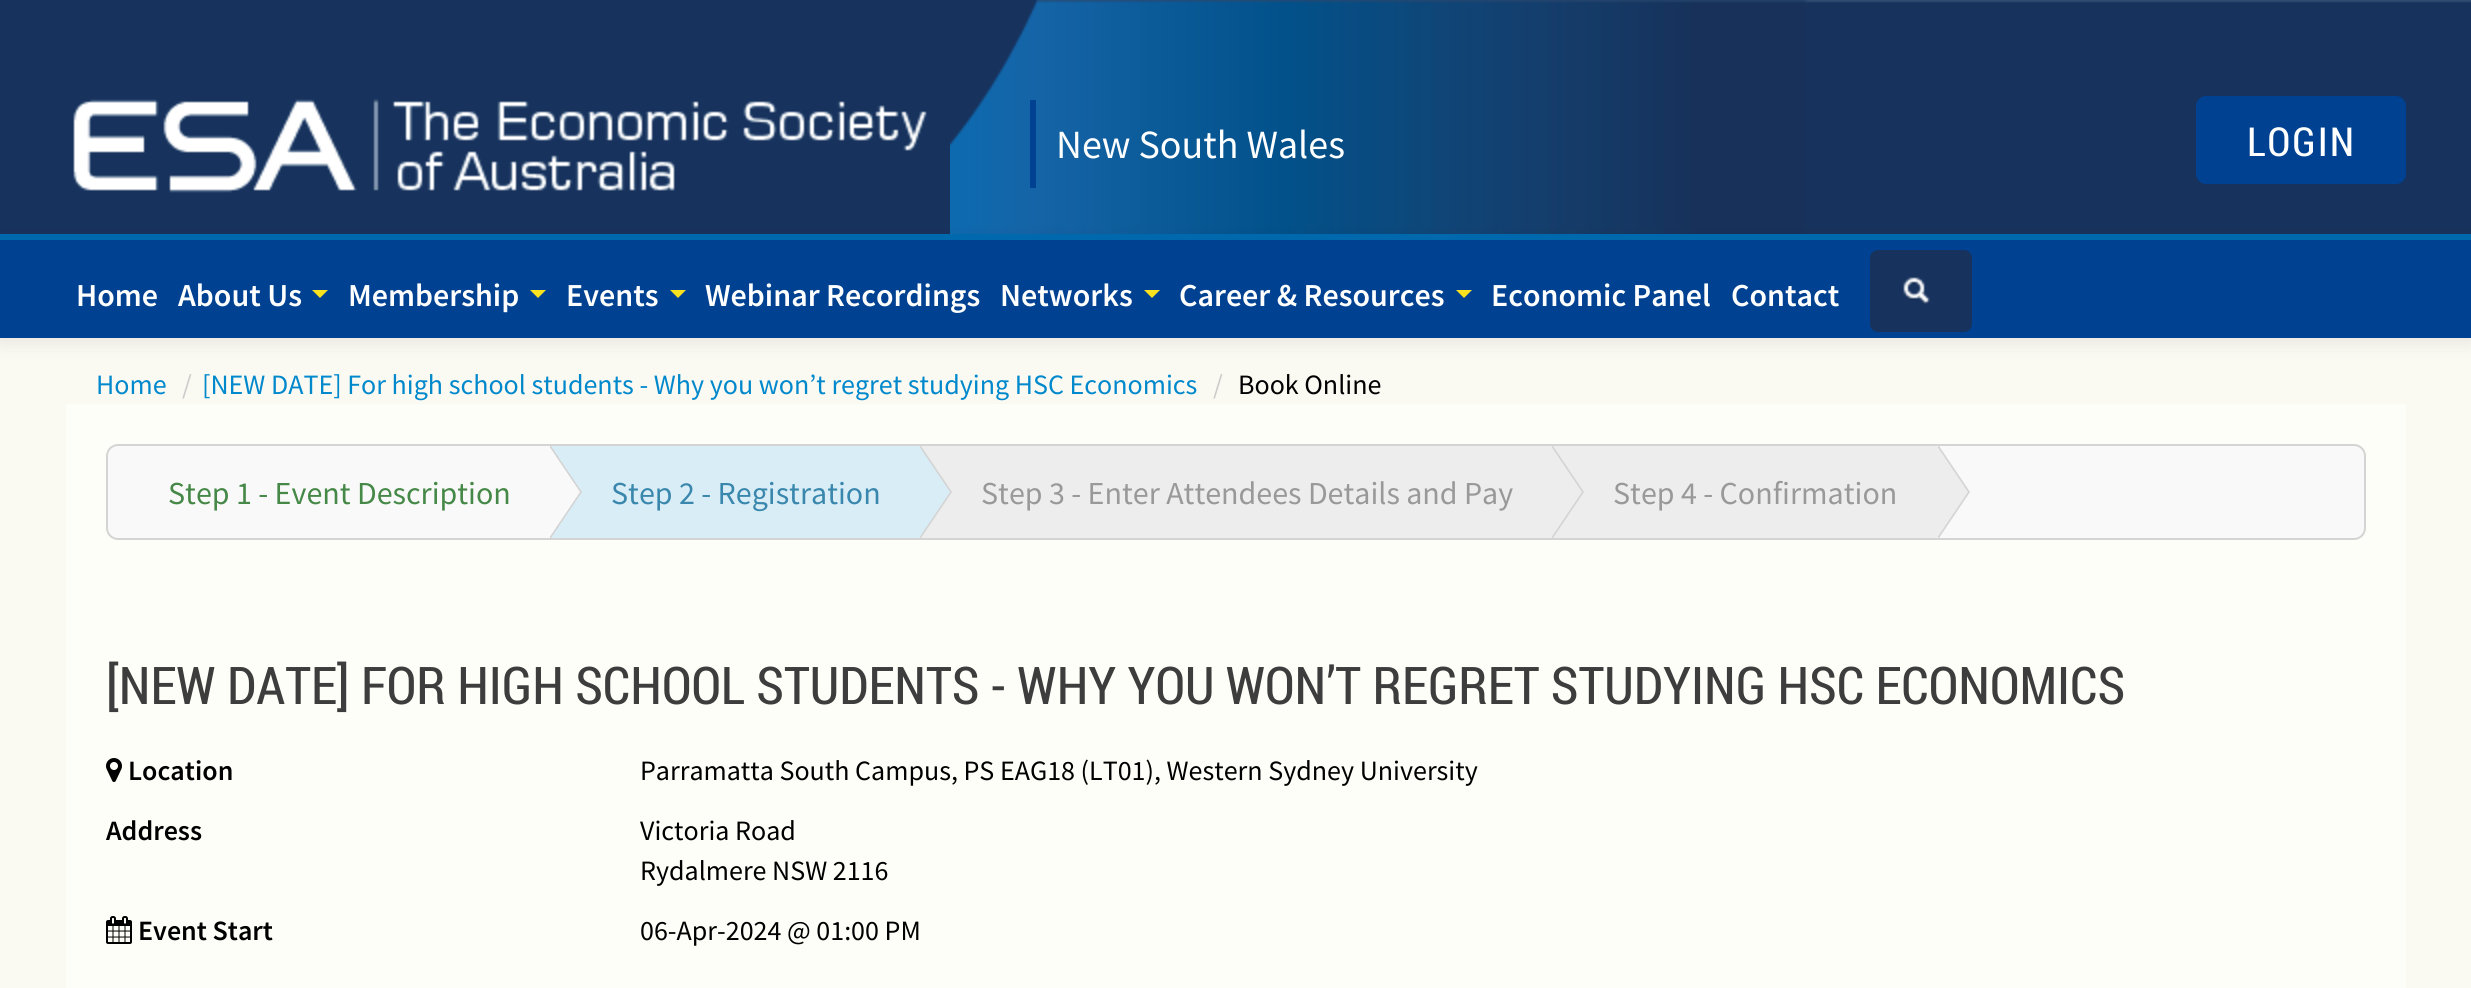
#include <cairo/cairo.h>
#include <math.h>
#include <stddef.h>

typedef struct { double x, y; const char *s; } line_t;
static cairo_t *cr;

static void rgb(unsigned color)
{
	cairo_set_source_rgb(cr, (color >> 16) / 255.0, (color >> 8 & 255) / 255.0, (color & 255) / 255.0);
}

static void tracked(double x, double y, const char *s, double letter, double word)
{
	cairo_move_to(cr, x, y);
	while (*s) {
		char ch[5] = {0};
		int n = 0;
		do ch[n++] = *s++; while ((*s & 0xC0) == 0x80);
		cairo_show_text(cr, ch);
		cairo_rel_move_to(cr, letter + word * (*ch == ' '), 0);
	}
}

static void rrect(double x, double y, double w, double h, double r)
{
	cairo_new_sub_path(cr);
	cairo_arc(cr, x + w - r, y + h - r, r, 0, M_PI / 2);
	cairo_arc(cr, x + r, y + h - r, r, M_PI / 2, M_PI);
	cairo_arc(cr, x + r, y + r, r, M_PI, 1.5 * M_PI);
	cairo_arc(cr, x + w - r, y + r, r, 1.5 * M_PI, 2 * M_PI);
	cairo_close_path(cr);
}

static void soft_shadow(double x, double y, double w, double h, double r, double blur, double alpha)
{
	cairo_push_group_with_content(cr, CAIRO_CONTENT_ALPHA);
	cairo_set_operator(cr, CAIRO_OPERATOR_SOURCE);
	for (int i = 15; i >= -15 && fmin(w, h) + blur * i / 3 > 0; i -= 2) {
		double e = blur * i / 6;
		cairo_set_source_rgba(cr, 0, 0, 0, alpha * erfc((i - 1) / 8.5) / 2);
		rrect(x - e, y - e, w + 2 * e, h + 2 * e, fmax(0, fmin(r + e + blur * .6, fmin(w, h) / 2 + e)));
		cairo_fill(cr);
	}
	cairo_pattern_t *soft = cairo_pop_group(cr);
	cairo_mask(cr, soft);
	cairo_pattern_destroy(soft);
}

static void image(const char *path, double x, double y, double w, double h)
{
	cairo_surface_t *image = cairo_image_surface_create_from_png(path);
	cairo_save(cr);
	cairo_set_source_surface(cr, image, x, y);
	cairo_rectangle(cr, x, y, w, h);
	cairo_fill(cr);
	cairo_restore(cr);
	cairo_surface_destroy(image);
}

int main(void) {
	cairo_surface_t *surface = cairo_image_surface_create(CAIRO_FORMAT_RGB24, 2471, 988);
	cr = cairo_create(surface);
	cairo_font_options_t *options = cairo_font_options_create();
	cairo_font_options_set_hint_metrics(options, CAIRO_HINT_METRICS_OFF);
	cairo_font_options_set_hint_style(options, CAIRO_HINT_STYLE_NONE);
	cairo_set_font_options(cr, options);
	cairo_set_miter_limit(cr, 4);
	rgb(0xfafaf2);
	cairo_paint(cr);
	rgb(0x17325d);
	cairo_rectangle(cr, 0, 0, 2471, 234);
	cairo_fill(cr);
	image("img/1.png", 950, 0, 1521, 234);
	image("img/2.png", 73, 99, 877, 135);
	rgb(0x004191);
	cairo_rectangle(cr, 1030, 100, 6, 88);
	cairo_fill(cr);
	rrect(2196, 96, 210, 88, 10);
	cairo_fill(cr);
	rgb(0x006cb2);
	cairo_rectangle(cr, 0, 234, 2471, 6);
	cairo_fill(cr);
	rgb(0x000000);
	soft_shadow(0, 242, 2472, 98, 0, 10, 0.1);
	rgb(0x004191);
	cairo_rectangle(cr, 0, 240, 2471, 98);
	cairo_fill(cr);
	rgb(0xfae21e);
	cairo_new_path(cr);
	cairo_move_to(cr, 312, 290);
	cairo_line_to(cr, 328, 290);
	cairo_line_to(cr, 320, 298);
	cairo_close_path(cr);
	cairo_fill(cr);
	cairo_new_path(cr);
	cairo_move_to(cr, 530, 290);
	cairo_line_to(cr, 546, 290);
	cairo_line_to(cr, 538, 298);
	cairo_close_path(cr);
	cairo_fill(cr);
	cairo_new_path(cr);
	cairo_move_to(cr, 670, 290);
	cairo_line_to(cr, 686, 290);
	cairo_line_to(cr, 678, 298);
	cairo_close_path(cr);
	cairo_fill(cr);
	cairo_new_path(cr);
	cairo_move_to(cr, 1144, 290);
	cairo_line_to(cr, 1160, 290);
	cairo_line_to(cr, 1152, 298);
	cairo_close_path(cr);
	cairo_fill(cr);
	cairo_new_path(cr);
	cairo_move_to(cr, 1456, 290);
	cairo_line_to(cr, 1472, 290);
	cairo_line_to(cr, 1464, 298);
	cairo_close_path(cr);
	cairo_fill(cr);
	rgb(0x17325d);
	rrect(1870, 250, 102, 82, 8);
	cairo_fill(cr);
	image("img/3.png", 1903, 277, 27, 27);
	rgb(0xfefef9);
	cairo_rectangle(cr, 66, 404, 2340, 584);
	cairo_fill(cr);
	rgb(0xf9f9f9);
	rrect(107, 445, 2258, 94, 11);
	cairo_fill_preserve(cr);
	rgb(0xd4d4d4);
	cairo_stroke(cr);
	rgb(0xd9edf7);
	cairo_rectangle(cr, 551, 446, 369, 92);
	cairo_fill(cr);
	rgb(0xd4d4d4);
	cairo_new_path(cr);
	cairo_move_to(cr, 551, 446);
	cairo_line_to(cr, 582, 492);
	cairo_line_to(cr, 551, 538);
	cairo_line_to(cr, 550, 538);
	cairo_line_to(cr, 550, 446);
	cairo_close_path(cr);
	cairo_fill(cr);
	rgb(0xf9f9f9);
	cairo_new_path(cr);
	cairo_move_to(cr, 549, 446);
	cairo_line_to(cr, 580, 492);
	cairo_line_to(cr, 549, 538);
	cairo_line_to(cr, 548, 538);
	cairo_line_to(cr, 548, 446);
	cairo_close_path(cr);
	cairo_fill(cr);
	rgb(0xededed);
	cairo_rectangle(cr, 921, 446, 631, 92);
	cairo_fill(cr);
	rgb(0xd4d4d4);
	cairo_new_path(cr);
	cairo_move_to(cr, 921, 446);
	cairo_line_to(cr, 952, 492);
	cairo_line_to(cr, 921, 538);
	cairo_line_to(cr, 920, 538);
	cairo_line_to(cr, 920, 446);
	cairo_close_path(cr);
	cairo_fill(cr);
	rgb(0xd9edf7);
	cairo_new_path(cr);
	cairo_move_to(cr, 919, 446);
	cairo_line_to(cr, 950, 492);
	cairo_line_to(cr, 919, 538);
	cairo_line_to(cr, 918, 538);
	cairo_line_to(cr, 918, 446);
	cairo_close_path(cr);
	cairo_fill(cr);
	rgb(0xededed);
	cairo_rectangle(cr, 1553, 446, 385, 92);
	cairo_fill(cr);
	rgb(0xd4d4d4);
	cairo_new_path(cr);
	cairo_move_to(cr, 1553, 446);
	cairo_line_to(cr, 1584, 492);
	cairo_line_to(cr, 1553, 538);
	cairo_line_to(cr, 1552, 538);
	cairo_line_to(cr, 1552, 446);
	cairo_close_path(cr);
	cairo_fill(cr);
	rgb(0xededed);
	cairo_new_path(cr);
	cairo_move_to(cr, 1551, 446);
	cairo_line_to(cr, 1582, 492);
	cairo_line_to(cr, 1551, 538);
	cairo_line_to(cr, 1550, 538);
	cairo_line_to(cr, 1550, 446);
	cairo_close_path(cr);
	cairo_fill(cr);
	rgb(0xd4d4d4);
	cairo_new_path(cr);
	cairo_move_to(cr, 1939, 446);
	cairo_line_to(cr, 1970, 492);
	cairo_line_to(cr, 1939, 538);
	cairo_line_to(cr, 1938, 538);
	cairo_line_to(cr, 1938, 446);
	cairo_close_path(cr);
	cairo_fill(cr);
	rgb(0xededed);
	cairo_new_path(cr);
	cairo_move_to(cr, 1937, 446);
	cairo_line_to(cr, 1968, 492);
	cairo_line_to(cr, 1937, 538);
	cairo_line_to(cr, 1936, 538);
	cairo_line_to(cr, 1936, 446);
	cairo_close_path(cr);
	cairo_fill(cr);
	image("img/4.png", 106, 758, 16, 24);
	image("img/5.png", 106, 916, 26, 28);
	cairo_select_font_face(cr, "Source Sans Pro", CAIRO_FONT_SLANT_NORMAL, CAIRO_FONT_WEIGHT_NORMAL);
	cairo_set_font_size(cr, 40);
	rgb(0xffffff);
	cairo_move_to(cr, 1056, 158);
	cairo_show_text(cr, "New South Wales");
	cairo_select_font_face(cr, "Roboto Condensed", CAIRO_FONT_SLANT_NORMAL, CAIRO_FONT_WEIGHT_NORMAL);
	tracked(2247, 156, "LOGIN", 2, 0);
	cairo_select_font_face(cr, "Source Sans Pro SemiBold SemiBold", CAIRO_FONT_SLANT_NORMAL, CAIRO_FONT_WEIGHT_NORMAL);
	cairo_set_font_size(cr, 32);
	{
		static const line_t items[] = {
			{76, 306, "Home"},
			{178, 306, "About Us"},
			{348, 306, "Membership"},
			{566, 306, "Events"},
			{705, 306, "Webinar Recordings"},
			{1000, 306, "Networks"},
			{1179, 306, "Career & Resources"},
			{1491, 306, "Economic Panel"},
			{1731, 306, "Contact"},
		};
		for (size_t i = 0; i < sizeof items / sizeof *items; i++) {
			cairo_move_to(cr, items[i].x, items[i].y);
			cairo_show_text(cr, items[i].s);
		}
	}
	cairo_select_font_face(cr, "Source Sans Pro", CAIRO_FONT_SLANT_NORMAL, CAIRO_FONT_WEIGHT_NORMAL);
	cairo_set_font_size(cr, 28);
	rgb(0x0088cc);
	cairo_move_to(cr, 96, 394);
	cairo_show_text(cr, "Home");
	rgb(0xcccccc);
	cairo_move_to(cr, 182, 394);
	cairo_show_text(cr, "/");
	rgb(0x0088cc);
	cairo_move_to(cr, 202, 394);
	cairo_show_text(cr, "[NEW DATE] For high school students - Why you won’t regret studying HSC Economics");
	rgb(0xcccccc);
	cairo_move_to(cr, 1213, 394);
	cairo_show_text(cr, "/");
	rgb(0x000000);
	cairo_move_to(cr, 1238, 394);
	cairo_show_text(cr, "Book Online");
	cairo_set_font_size(cr, 32);
	rgb(0x468847);
	cairo_move_to(cr, 168, 504);
	cairo_show_text(cr, "Step 1 - Event Description");
	rgb(0x3a87ad);
	cairo_move_to(cr, 611, 504);
	cairo_show_text(cr, "Step 2 - Registration");
	rgb(0x999999);
	cairo_move_to(cr, 981, 504);
	cairo_show_text(cr, "Step 3 - Enter Attendees Details and Pay");
	cairo_move_to(cr, 1613, 504);
	cairo_show_text(cr, "Step 4 - Confirmation");
	cairo_select_font_face(cr, "Roboto Condensed", CAIRO_FONT_SLANT_NORMAL, CAIRO_FONT_WEIGHT_NORMAL);
	cairo_set_font_size(cr, 52);
	rgb(0x3d3d3d);
	cairo_move_to(cr, 106, 704);
	cairo_show_text(cr, "[NEW DATE] FOR HIGH SCHOOL STUDENTS - WHY YOU WON’T REGRET STUDYING HSC ECONOMICS");
	cairo_select_font_face(cr, "Source Sans Pro SemiBold SemiBold", CAIRO_FONT_SLANT_NORMAL, CAIRO_FONT_WEIGHT_NORMAL);
	cairo_set_font_size(cr, 28);
	rgb(0x000000);
	cairo_move_to(cr, 128, 780);
	cairo_show_text(cr, "Location");
	cairo_select_font_face(cr, "Source Sans Pro", CAIRO_FONT_SLANT_NORMAL, CAIRO_FONT_WEIGHT_NORMAL);
	cairo_move_to(cr, 640, 780);
	cairo_show_text(cr, "Parramatta South Campus, PS EAG18 (LT01), Western Sydney University");
	cairo_select_font_face(cr, "Source Sans Pro SemiBold SemiBold", CAIRO_FONT_SLANT_NORMAL, CAIRO_FONT_WEIGHT_NORMAL);
	cairo_move_to(cr, 106, 840);
	cairo_show_text(cr, "Address");
	cairo_select_font_face(cr, "Source Sans Pro", CAIRO_FONT_SLANT_NORMAL, CAIRO_FONT_WEIGHT_NORMAL);
	cairo_move_to(cr, 640, 840);
	cairo_show_text(cr, "Victoria Road");
	cairo_move_to(cr, 640, 880);
	cairo_show_text(cr, "Rydalmere NSW 2116");
	cairo_select_font_face(cr, "Source Sans Pro SemiBold SemiBold", CAIRO_FONT_SLANT_NORMAL, CAIRO_FONT_WEIGHT_NORMAL);
	cairo_move_to(cr, 138, 940);
	cairo_show_text(cr, "Event Start");
	cairo_select_font_face(cr, "Source Sans Pro", CAIRO_FONT_SLANT_NORMAL, CAIRO_FONT_WEIGHT_NORMAL);
	cairo_move_to(cr, 640, 940);
	cairo_show_text(cr, "06-Apr-2024 @ 01:00 PM");
	cairo_surface_write_to_png(surface, "page.png");
	cairo_font_options_destroy(options);
	cairo_destroy(cr);
	cairo_surface_destroy(surface);
	return 0;
}
